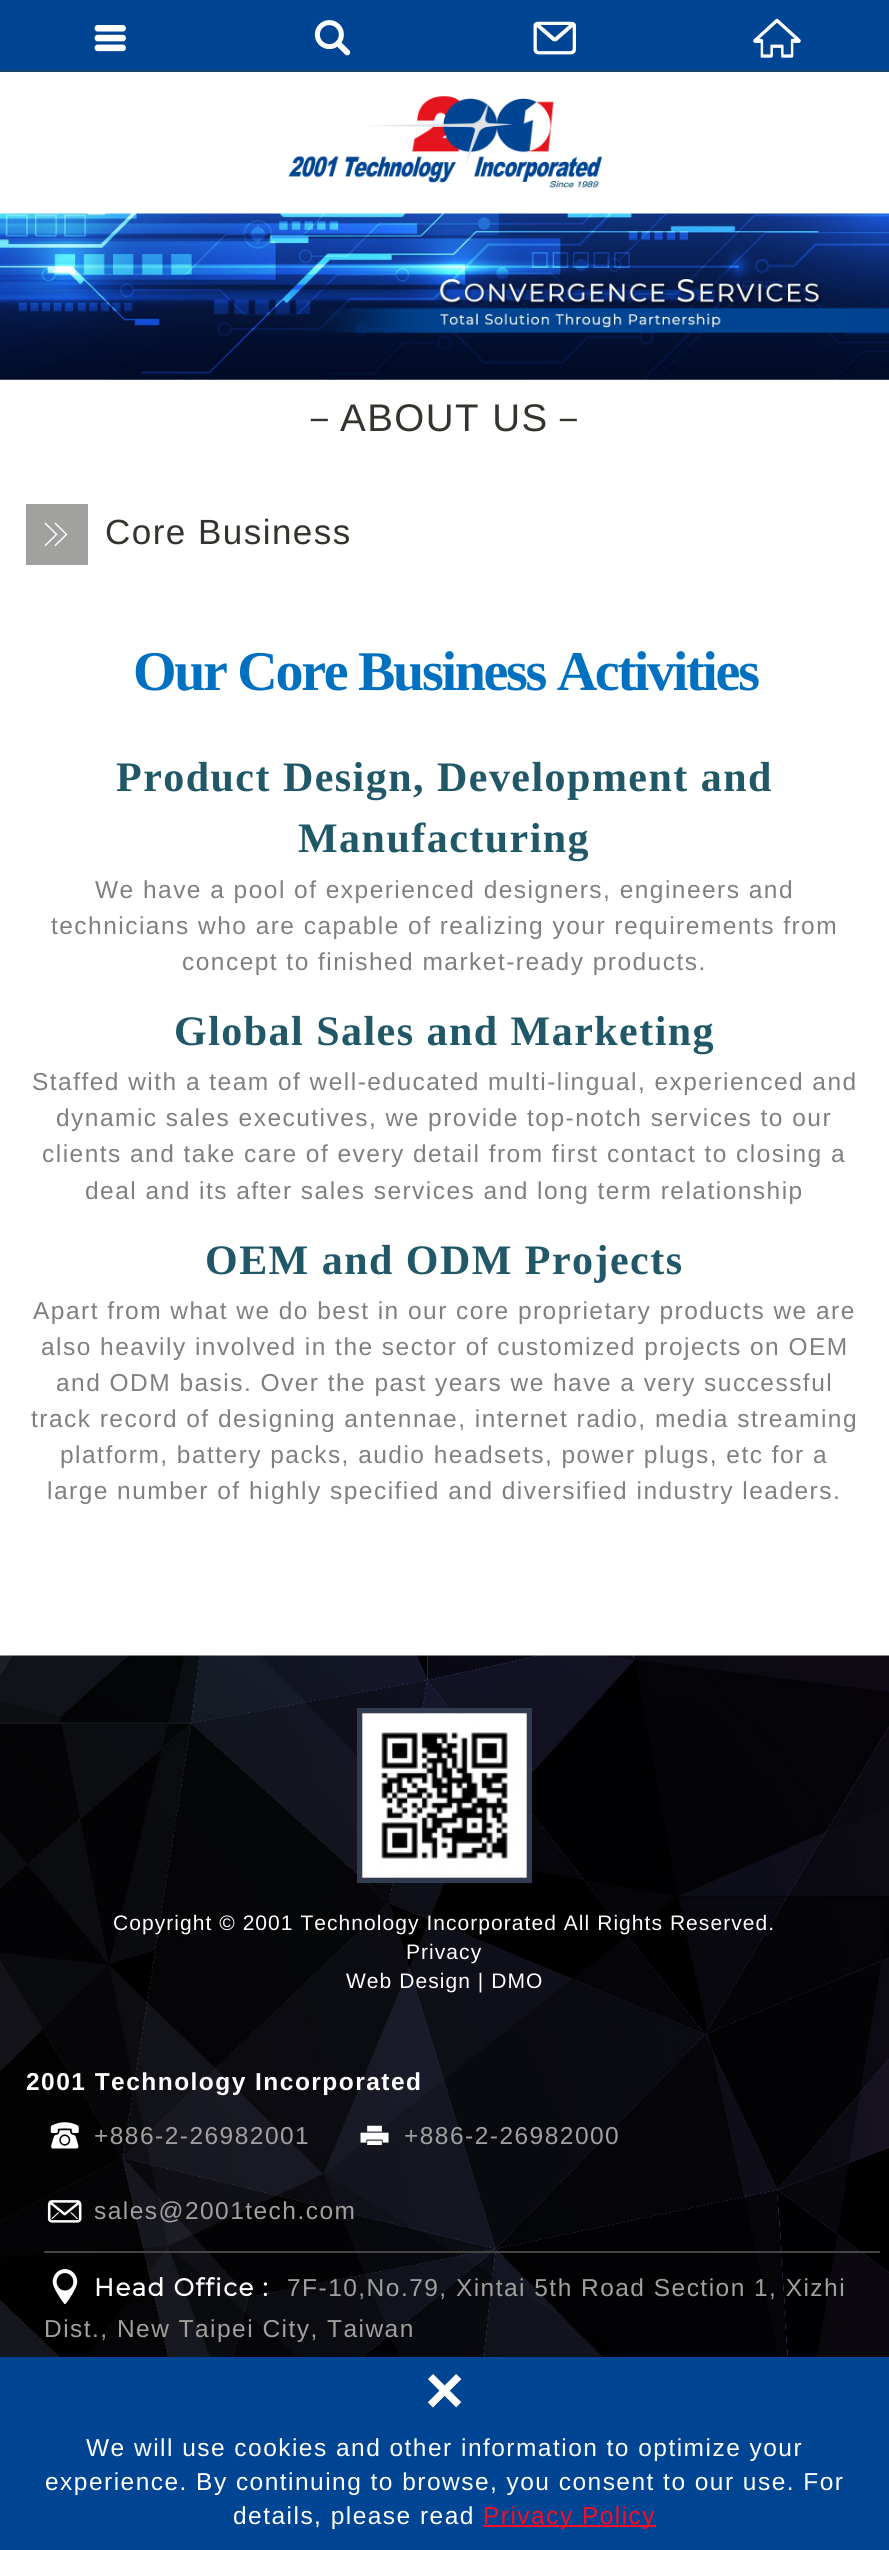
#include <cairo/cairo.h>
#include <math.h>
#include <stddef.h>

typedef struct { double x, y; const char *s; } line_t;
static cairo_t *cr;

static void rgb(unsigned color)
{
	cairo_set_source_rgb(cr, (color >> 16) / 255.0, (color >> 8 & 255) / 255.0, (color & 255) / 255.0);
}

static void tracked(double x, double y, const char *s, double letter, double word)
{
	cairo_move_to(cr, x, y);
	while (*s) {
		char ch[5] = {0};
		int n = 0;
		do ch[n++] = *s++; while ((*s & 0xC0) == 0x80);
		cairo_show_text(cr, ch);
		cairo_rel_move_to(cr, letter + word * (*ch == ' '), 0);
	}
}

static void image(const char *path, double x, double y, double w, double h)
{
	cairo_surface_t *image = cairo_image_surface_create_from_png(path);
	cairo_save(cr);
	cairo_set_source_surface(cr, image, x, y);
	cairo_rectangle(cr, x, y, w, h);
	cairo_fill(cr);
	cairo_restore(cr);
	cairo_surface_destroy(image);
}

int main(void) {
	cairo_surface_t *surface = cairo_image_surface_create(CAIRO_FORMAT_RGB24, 889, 2550);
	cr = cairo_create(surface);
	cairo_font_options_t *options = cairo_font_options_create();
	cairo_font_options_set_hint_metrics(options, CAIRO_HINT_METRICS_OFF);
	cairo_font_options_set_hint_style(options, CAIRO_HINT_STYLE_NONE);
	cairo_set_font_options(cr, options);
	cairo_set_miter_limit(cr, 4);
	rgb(0xffffff);
	cairo_paint(cr);
	rgb(0x1a426f);
	cairo_rectangle(cr, 0, 70, 889, 2);
	cairo_fill(cr);
	rgb(0x004593);
	cairo_rectangle(cr, 0, 0, 889, 70);
	cairo_fill(cr);
	image("img/1.png", 94, 25, 32, 27);
	image("img/2.png", 314, 20, 37, 36);
	image("img/3.png", 533, 21, 43, 34);
	image("img/4.png", 753, 18, 48, 40);
	image("img/5.png", 0, 213, 889, 167);
	rgb(0xa1a19f);
	cairo_rectangle(cr, 26, 504, 62, 61);
	cairo_fill(cr);
	image("img/6.png", 44, 522, 24, 25);
	image("img/7.png", 0, 1655, 889, 702);
	cairo_rectangle(cr, 359.5, 1710.5, 170, 170);
	rgb(0x313c50);
	cairo_set_line_width(cr, 5);
	cairo_stroke(cr);
	image("img/8.png", 362, 1713, 165, 165);
	image("img/9.png", 50, 2122, 29, 27);
	image("img/10.png", 360, 2125, 29, 20);
	image("img/11.png", 47, 2200, 35, 23);
	rgb(0x444444);
	cairo_rectangle(cr, 44, 2251, 836, 2);
	cairo_fill(cr);
	image("img/12.png", 52, 2269, 26, 35);
	image("img/13.png", 288, 96, 314, 92);
	rgb(0x004593);
	cairo_rectangle(cr, 0, 2357, 889, 193);
	cairo_fill(cr);
	rgb(0xf70e25);
	cairo_rectangle(cr, 483, 2525, 173, 2);
	cairo_fill(cr);
	cairo_select_font_face(cr, "WenQuanYi Zen Hei Medium", CAIRO_FONT_SLANT_NORMAL, CAIRO_FONT_WEIGHT_NORMAL);
	cairo_set_font_size(cr, 38.5);
	rgb(0x33342e);
	tracked(300, 431, "－", 1.47, 0);
	cairo_select_font_face(cr, "Liberation Sans", CAIRO_FONT_SLANT_NORMAL, CAIRO_FONT_WEIGHT_NORMAL);
	tracked(340, 431, "ABOUT US", 1.47, 0);
	cairo_select_font_face(cr, "WenQuanYi Zen Hei Medium", CAIRO_FONT_SLANT_NORMAL, CAIRO_FONT_WEIGHT_NORMAL);
	tracked(549, 431, "－", 1.47, 0);
	cairo_select_font_face(cr, "Liberation Sans", CAIRO_FONT_SLANT_NORMAL, CAIRO_FONT_WEIGHT_NORMAL);
	cairo_set_font_size(cr, 35);
	tracked(105, 544, "Core Business", 1.47, 0);
	cairo_select_font_face(cr, "Liberation Serif", CAIRO_FONT_SLANT_NORMAL, CAIRO_FONT_WEIGHT_BOLD);
	cairo_set_font_size(cr, 56);
	rgb(0x0070c0);
	tracked(133, 690, "Our Core Business Activities", -2.3, 0);
	cairo_set_font_size(cr, 42);
	rgb(0x215868);
	tracked(116, 791, "Product Design, Development and", 1.47, 0);
	tracked(298, 852, "Manufacturing", 1.47, 0);
	cairo_select_font_face(cr, "Liberation Sans", CAIRO_FONT_SLANT_NORMAL, CAIRO_FONT_WEIGHT_NORMAL);
	cairo_set_font_size(cr, 24.5);
	rgb(0x7f7f7f);
	{
		static const line_t items[] = {
			{95, 898, "We have a pool of experienced designers, engineers and"},
			{51, 934, "technicians who are capable of realizing your requirements from"},
			{182, 970, "concept to finished market-ready products."},
		};
		for (size_t i = 0; i < sizeof items / sizeof *items; i++) {
			tracked(items[i].x, items[i].y, items[i].s, 1.47, 0);
		}
	}
	cairo_select_font_face(cr, "Liberation Serif", CAIRO_FONT_SLANT_NORMAL, CAIRO_FONT_WEIGHT_BOLD);
	cairo_set_font_size(cr, 42);
	rgb(0x215868);
	tracked(174, 1045, "Global Sales and Marketing", 1.47, 0);
	cairo_select_font_face(cr, "Liberation Sans", CAIRO_FONT_SLANT_NORMAL, CAIRO_FONT_WEIGHT_NORMAL);
	cairo_set_font_size(cr, 24.5);
	rgb(0x7f7f7f);
	{
		static const line_t items[] = {
			{32, 1090, "Staffed with a team of well-educated multi-lingual, experienced and"},
			{56, 1126, "dynamic sales executives, we provide top-notch services to our"},
			{42, 1162, "clients and take care of every detail from first contact to closing a"},
			{85, 1199, "deal and its after sales services and long term relationship"},
		};
		for (size_t i = 0; i < sizeof items / sizeof *items; i++) {
			tracked(items[i].x, items[i].y, items[i].s, 1.47, 0);
		}
	}
	cairo_select_font_face(cr, "Liberation Serif", CAIRO_FONT_SLANT_NORMAL, CAIRO_FONT_WEIGHT_BOLD);
	cairo_set_font_size(cr, 42);
	rgb(0x215868);
	tracked(205, 1274, "OEM and ODM Projects", 1.47, 0);
	cairo_select_font_face(cr, "Liberation Sans", CAIRO_FONT_SLANT_NORMAL, CAIRO_FONT_WEIGHT_NORMAL);
	cairo_set_font_size(cr, 24.5);
	rgb(0x7f7f7f);
	{
		static const line_t items[] = {
			{33, 1319, "Apart from what we do best in our core proprietary products we are"},
			{41, 1355, "also heavily involved in the sector of customized projects on OEM"},
			{56, 1391, "and ODM basis. Over the past years we have a very successful"},
			{31, 1427, "track record of designing antennae, internet radio, media streaming"},
			{60, 1463, "platform, battery packs, audio headsets, power plugs, etc for a"},
			{47, 1499, "large number of highly specified and diversified industry leaders."},
		};
		for (size_t i = 0; i < sizeof items / sizeof *items; i++) {
			tracked(items[i].x, items[i].y, items[i].s, 1.47, 0);
		}
	}
	cairo_set_font_size(cr, 21);
	rgb(0xffffff);
	{
		static const line_t items[] = {
			{113, 1930, "Copyright © 2001 Technology Incorporated All Rights Reserved."},
			{406, 1959, "Privacy"},
			{346, 1988, "Web Design | DMO"},
		};
		for (size_t i = 0; i < sizeof items / sizeof *items; i++) {
			tracked(items[i].x, items[i].y, items[i].s, 1.05, 0);
		}
	}
	cairo_select_font_face(cr, "Liberation Sans", CAIRO_FONT_SLANT_NORMAL, CAIRO_FONT_WEIGHT_BOLD);
	cairo_set_font_size(cr, 24.5);
	tracked(26, 2090, "2001 Technology Incorporated", 1.47, 0);
	cairo_select_font_face(cr, "Liberation Sans", CAIRO_FONT_SLANT_NORMAL, CAIRO_FONT_WEIGHT_NORMAL);
	rgb(0xa0a09e);
	{
		static const line_t items[] = {
			{94, 2144, "+886-2-26982001"},
			{404, 2144, "+886-2-26982000"},
			{94, 2219, "sales@2001tech.com"},
		};
		for (size_t i = 0; i < sizeof items / sizeof *items; i++) {
			tracked(items[i].x, items[i].y, items[i].s, 1.47, 0);
		}
	}
	cairo_select_font_face(cr, "Montserrat", CAIRO_FONT_SLANT_NORMAL, CAIRO_FONT_WEIGHT_BOLD);
	rgb(0xffffff);
	tracked(94, 2296, "Head Office :", 1.47, 0);
	cairo_select_font_face(cr, "Liberation Sans", CAIRO_FONT_SLANT_NORMAL, CAIRO_FONT_WEIGHT_NORMAL);
	rgb(0xa0a09e);
	tracked(287, 2296, "7F-10,No.79, Xintai 5th Road Section 1, Xizhi", 1.47, 0);
	tracked(44, 2337, "Dist., New Taipei City, Taiwan", 1.47, 0);
	cairo_select_font_face(cr, "Liberation Sans", CAIRO_FONT_SLANT_NORMAL, CAIRO_FONT_WEIGHT_BOLD);
	cairo_set_font_size(cr, 67);
	rgb(0xffffff);
	cairo_move_to(cr, 425, 2413);
	cairo_show_text(cr, "×");
	cairo_select_font_face(cr, "Liberation Sans", CAIRO_FONT_SLANT_NORMAL, CAIRO_FONT_WEIGHT_NORMAL);
	cairo_set_font_size(cr, 24.5);
	{
		static const line_t items[] = {
			{86, 2456, "We will use cookies and other information to optimize your"},
			{45, 2490, "experience. By continuing to browse, you consent to our use. For"},
			{233, 2524, "details, please read"},
		};
		for (size_t i = 0; i < sizeof items / sizeof *items; i++) {
			tracked(items[i].x, items[i].y, items[i].s, 1.47, 0);
		}
	}
	rgb(0xf70e25);
	tracked(483, 2524, "Privacy Policy", 1.47, 0);
	cairo_surface_write_to_png(surface, "page.png");
	cairo_font_options_destroy(options);
	cairo_destroy(cr);
	cairo_surface_destroy(surface);
	return 0;
}
